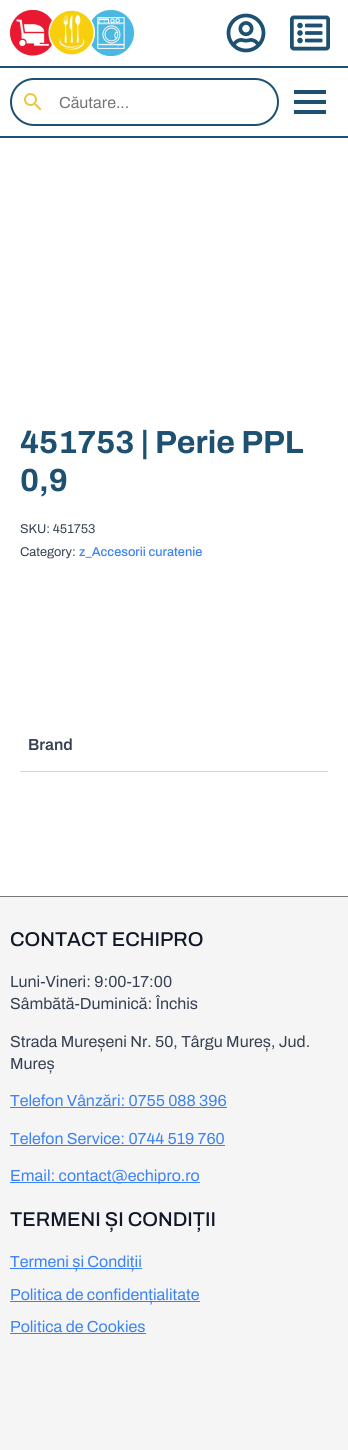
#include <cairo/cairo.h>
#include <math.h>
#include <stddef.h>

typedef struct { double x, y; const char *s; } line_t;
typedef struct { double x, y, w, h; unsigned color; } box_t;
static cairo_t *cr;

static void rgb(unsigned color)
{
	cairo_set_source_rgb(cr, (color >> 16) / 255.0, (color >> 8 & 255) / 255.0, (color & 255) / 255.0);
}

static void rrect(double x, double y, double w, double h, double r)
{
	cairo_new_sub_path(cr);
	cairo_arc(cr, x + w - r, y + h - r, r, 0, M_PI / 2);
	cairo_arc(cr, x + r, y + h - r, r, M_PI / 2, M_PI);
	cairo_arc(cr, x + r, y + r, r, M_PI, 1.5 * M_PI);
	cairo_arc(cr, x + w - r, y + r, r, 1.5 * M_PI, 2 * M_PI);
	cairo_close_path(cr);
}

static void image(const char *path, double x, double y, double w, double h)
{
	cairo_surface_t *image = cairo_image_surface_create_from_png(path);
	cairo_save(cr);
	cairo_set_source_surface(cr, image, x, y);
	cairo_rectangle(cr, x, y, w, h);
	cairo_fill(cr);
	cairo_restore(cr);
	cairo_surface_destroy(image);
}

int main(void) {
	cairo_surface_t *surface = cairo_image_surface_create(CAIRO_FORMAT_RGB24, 348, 1450);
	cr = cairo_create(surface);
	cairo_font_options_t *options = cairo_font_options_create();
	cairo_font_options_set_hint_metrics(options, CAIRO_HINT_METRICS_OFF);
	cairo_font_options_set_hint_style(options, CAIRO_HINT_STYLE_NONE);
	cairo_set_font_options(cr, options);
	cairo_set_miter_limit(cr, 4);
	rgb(0xffffff);
	cairo_paint(cr);
	image("img/1.png", 10, 10, 124, 46);
	image("img/2.png", 226, 13, 40, 40);
	image("img/3.png", 290, 15, 40, 36);
	rgb(0x1e5071);
	cairo_rectangle(cr, 0, 66, 348, 2);
	cairo_fill(cr);
	cairo_rectangle(cr, 0, 136, 348, 2);
	cairo_fill(cr);
	rrect(11, 79, 267, 46, 23);
	cairo_stroke(cr);
	image("img/4.png", 24, 93, 18, 18);
	{
		static const box_t items[] = {
			{294, 100, 32, 4, 0x1e5071},
			{294, 90, 32, 4, 0x1e5071},
			{294, 110, 32, 4, 0x1e5071},
			{20, 771, 308, 1, 0xd1d5db},
			{0, 897, 348, 553, 0xf5f5f5},
			{0, 896, 348, 1, 0x777777},
			{10, 1107, 217, 1, 0x3b82f6},
			{10, 1145, 215, 1, 0x3b82f6},
			{10, 1182, 190, 1, 0x3b82f6},
			{10, 1268, 132, 1, 0x3b82f6},
			{10, 1301, 190, 1, 0x3b82f6},
			{10, 1333, 136, 1, 0x3b82f6},
		};
		for (size_t i = 0; i < sizeof items / sizeof *items; i++) {
			rgb(items[i].color);
			cairo_rectangle(cr, items[i].x, items[i].y, items[i].w, items[i].h);
			cairo_fill(cr);
		}
	}
	cairo_select_font_face(cr, "Archivo", CAIRO_FONT_SLANT_NORMAL, CAIRO_FONT_WEIGHT_NORMAL);
	cairo_set_font_size(cr, 16);
	rgb(0x757575);
	cairo_move_to(cr, 59, 108);
	cairo_show_text(cr, "Căutare...");
	cairo_select_font_face(cr, "Archivo", CAIRO_FONT_SLANT_NORMAL, CAIRO_FONT_WEIGHT_BOLD);
	cairo_set_font_size(cr, 32);
	rgb(0x1e5071);
	cairo_move_to(cr, 20, 453);
	cairo_show_text(cr, "451753 | Perie PPL");
	cairo_move_to(cr, 20, 491);
	cairo_show_text(cr, "0,9");
	cairo_select_font_face(cr, "Archivo", CAIRO_FONT_SLANT_NORMAL, CAIRO_FONT_WEIGHT_NORMAL);
	cairo_set_font_size(cr, 12.75);
	rgb(0x374151);
	cairo_move_to(cr, 20, 533);
	cairo_show_text(cr, "SKU: 451753");
	cairo_move_to(cr, 20, 556);
	cairo_show_text(cr, "Category:");
	cairo_select_font_face(cr, "Archivo Medium", CAIRO_FONT_SLANT_NORMAL, CAIRO_FONT_WEIGHT_NORMAL);
	rgb(0x3b82f6);
	cairo_move_to(cr, 79, 556);
	cairo_show_text(cr, "z_Accesorii curatenie");
	cairo_select_font_face(cr, "Archivo SemiBold", CAIRO_FONT_SLANT_NORMAL, CAIRO_FONT_WEIGHT_NORMAL);
	cairo_set_font_size(cr, 16);
	rgb(0x374151);
	cairo_move_to(cr, 28, 750);
	cairo_show_text(cr, "Brand");
	cairo_select_font_face(cr, "Archivo Medium", CAIRO_FONT_SLANT_NORMAL, CAIRO_FONT_WEIGHT_NORMAL);
	cairo_set_font_size(cr, 20);
	rgb(0x111827);
	cairo_move_to(cr, 10, 946);
	cairo_show_text(cr, "CONTACT ECHIPRO");
	cairo_select_font_face(cr, "Archivo", CAIRO_FONT_SLANT_NORMAL, CAIRO_FONT_WEIGHT_NORMAL);
	cairo_set_font_size(cr, 16);
	rgb(0x374151);
	{
		static const line_t items[] = {
			{10, 987, "Luni-Vineri: 9:00-17:00"},
			{10, 1009, "Sâmbătă-Duminică: Închis"},
			{10, 1047, "Strada Mureșeni Nr. 50, Târgu Mureș, Jud."},
			{10, 1069, "Mureș"},
		};
		for (size_t i = 0; i < sizeof items / sizeof *items; i++) {
			cairo_move_to(cr, items[i].x, items[i].y);
			cairo_show_text(cr, items[i].s);
		}
	}
	rgb(0x3b82f6);
	{
		static const line_t items[] = {
			{10, 1106, "Telefon Vânzări: 0755 088 396"},
			{10, 1144, "Telefon Service: 0744 519 760"},
			{10, 1181, "Email: contact@echipro.ro"},
		};
		for (size_t i = 0; i < sizeof items / sizeof *items; i++) {
			cairo_move_to(cr, items[i].x, items[i].y);
			cairo_show_text(cr, items[i].s);
		}
	}
	cairo_select_font_face(cr, "Archivo Medium", CAIRO_FONT_SLANT_NORMAL, CAIRO_FONT_WEIGHT_NORMAL);
	cairo_set_font_size(cr, 20);
	rgb(0x111827);
	cairo_move_to(cr, 10, 1226);
	cairo_show_text(cr, "TERMENI ȘI CONDIȚII");
	cairo_select_font_face(cr, "Archivo", CAIRO_FONT_SLANT_NORMAL, CAIRO_FONT_WEIGHT_NORMAL);
	cairo_set_font_size(cr, 16);
	rgb(0x3b82f6);
	{
		static const line_t items[] = {
			{10, 1267, "Termeni și Condiții"},
			{10, 1300, "Politica de confidențialitate"},
			{10, 1332, "Politica de Cookies"},
		};
		for (size_t i = 0; i < sizeof items / sizeof *items; i++) {
			cairo_move_to(cr, items[i].x, items[i].y);
			cairo_show_text(cr, items[i].s);
		}
	}
	cairo_surface_write_to_png(surface, "page.png");
	cairo_font_options_destroy(options);
	cairo_destroy(cr);
	cairo_surface_destroy(surface);
	return 0;
}
